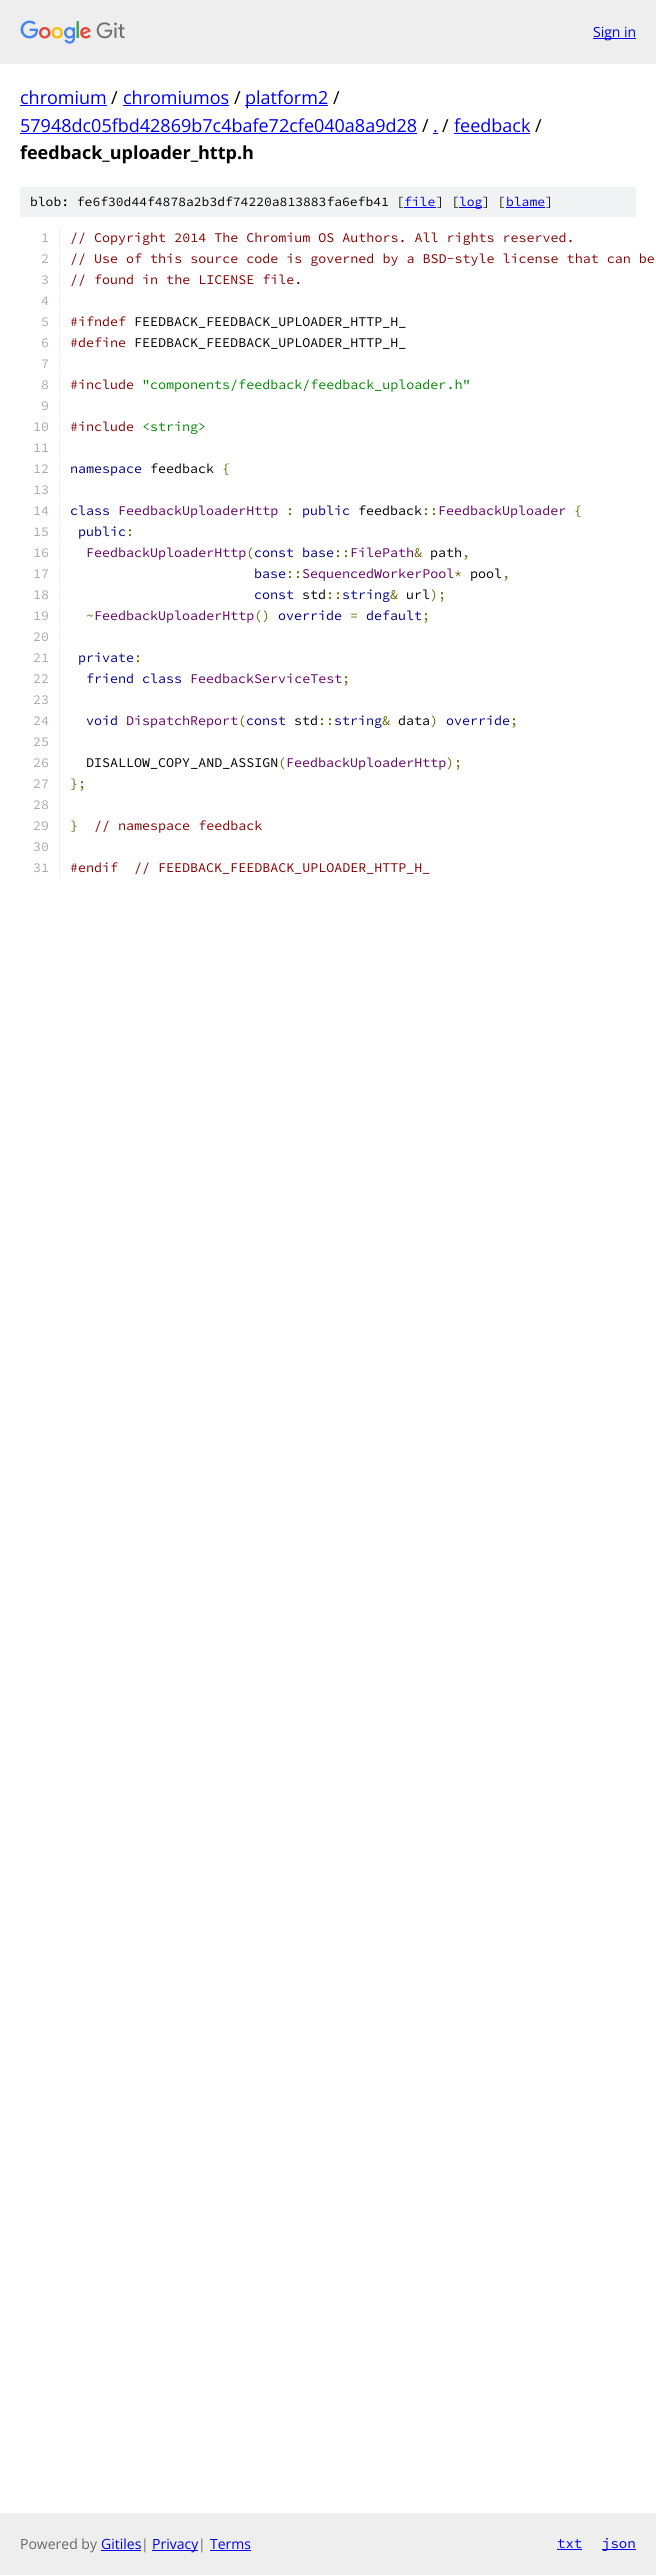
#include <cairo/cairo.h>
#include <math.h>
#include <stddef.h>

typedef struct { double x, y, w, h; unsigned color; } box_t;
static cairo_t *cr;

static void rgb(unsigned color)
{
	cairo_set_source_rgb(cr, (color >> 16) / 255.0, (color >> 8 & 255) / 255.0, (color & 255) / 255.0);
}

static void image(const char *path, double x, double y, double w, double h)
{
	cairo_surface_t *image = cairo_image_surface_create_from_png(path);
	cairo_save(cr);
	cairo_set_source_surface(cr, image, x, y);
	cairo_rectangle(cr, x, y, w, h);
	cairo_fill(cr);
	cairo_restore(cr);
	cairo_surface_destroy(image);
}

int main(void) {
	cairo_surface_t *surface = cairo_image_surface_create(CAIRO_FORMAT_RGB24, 656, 2575);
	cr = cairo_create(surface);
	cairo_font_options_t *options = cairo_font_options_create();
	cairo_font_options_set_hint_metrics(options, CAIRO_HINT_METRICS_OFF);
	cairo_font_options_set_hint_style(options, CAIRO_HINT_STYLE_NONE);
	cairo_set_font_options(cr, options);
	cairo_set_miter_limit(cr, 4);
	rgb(0xffffff);
	cairo_paint(cr);
	rgb(0xeeeeee);
	cairo_rectangle(cr, 0, 0, 656, 64);
	cairo_fill(cr);
	image("img/1.png", 20, 20, 105, 24);
	{
		static const box_t items[] = {
			{593, 38, 43, 1, 0x0000ee},
			{20, 105, 87, 1, 0x0000ee},
			{123, 105, 106, 1, 0x0000ee},
			{245, 105, 83, 1, 0x0000ee},
			{20, 133, 397, 1, 0x0000ee},
			{433, 133, 5, 1, 0x0000ee},
			{454, 133, 76, 1, 0x0000ee},
			{20, 187, 616, 30, 0xf1f2f3},
			{404, 207, 32, 1, 0x0000ee},
			{459, 207, 23, 1, 0x0000ee},
			{506, 207, 39, 1, 0x0000ee},
			{59, 228, 1, 20, 0xf1f2f3},
			{59, 249, 1, 20, 0xf1f2f3},
			{59, 270, 1, 20, 0xf1f2f3},
			{59, 291, 1, 20, 0xf1f2f3},
			{59, 312, 1, 20, 0xf1f2f3},
			{59, 333, 1, 20, 0xf1f2f3},
			{59, 354, 1, 20, 0xf1f2f3},
			{59, 375, 1, 20, 0xf1f2f3},
			{59, 396, 1, 20, 0xf1f2f3},
			{59, 417, 1, 20, 0xf1f2f3},
			{59, 438, 1, 20, 0xf1f2f3},
			{59, 459, 1, 20, 0xf1f2f3},
			{59, 480, 1, 20, 0xf1f2f3},
			{59, 501, 1, 20, 0xf1f2f3},
			{59, 522, 1, 20, 0xf1f2f3},
			{59, 543, 1, 20, 0xf1f2f3},
			{59, 564, 1, 20, 0xf1f2f3},
			{59, 585, 1, 20, 0xf1f2f3},
			{59, 606, 1, 20, 0xf1f2f3},
			{59, 627, 1, 20, 0xf1f2f3},
			{59, 648, 1, 231, 0xf1f2f3},
			{0, 2513, 656, 62, 0xeeeeee},
			{101, 2550, 40, 1, 0x0000ee},
			{152, 2550, 46, 1, 0x0000ee},
			{210, 2550, 41, 1, 0x0000ee},
			{557, 2549, 25, 1, 0x0000ee},
			{602, 2549, 34, 1, 0x0000ee},
		};
		for (size_t i = 0; i < sizeof items / sizeof *items; i++) {
			rgb(items[i].color);
			cairo_rectangle(cr, items[i].x, items[i].y, items[i].w, items[i].h);
			cairo_fill(cr);
		}
	}
	cairo_select_font_face(cr, "Open Sans", CAIRO_FONT_SLANT_NORMAL, CAIRO_FONT_WEIGHT_NORMAL);
	cairo_set_font_size(cr, 14);
	cairo_move_to(cr, 593, 37);
	cairo_show_text(cr, "Sign in");
	cairo_set_font_size(cr, 18);
	cairo_move_to(cr, 20, 104);
	cairo_show_text(cr, "chromium");
	rgb(0x000000);
	cairo_move_to(cr, 111, 104);
	cairo_show_text(cr, "/");
	rgb(0x0000ee);
	cairo_move_to(cr, 123, 104);
	cairo_show_text(cr, "chromiumos");
	rgb(0x000000);
	cairo_move_to(cr, 234, 104);
	cairo_show_text(cr, "/");
	rgb(0x0000ee);
	cairo_move_to(cr, 245, 104);
	cairo_show_text(cr, "platform2");
	rgb(0x000000);
	cairo_move_to(cr, 333, 104);
	cairo_show_text(cr, "/");
	rgb(0x0000ee);
	cairo_move_to(cr, 20, 132);
	cairo_show_text(cr, "57948dc05fbd42869b7c4bafe72cfe040a8a9d28");
	rgb(0x000000);
	cairo_move_to(cr, 422, 132);
	cairo_show_text(cr, "/");
	rgb(0x0000ee);
	cairo_move_to(cr, 433, 132);
	cairo_show_text(cr, ".");
	rgb(0x000000);
	cairo_move_to(cr, 442, 132);
	cairo_show_text(cr, "/");
	rgb(0x0000ee);
	cairo_move_to(cr, 454, 132);
	cairo_show_text(cr, "feedback");
	rgb(0x000000);
	cairo_move_to(cr, 535, 132);
	cairo_show_text(cr, "/");
	cairo_select_font_face(cr, "Open Sans", CAIRO_FONT_SLANT_NORMAL, CAIRO_FONT_WEIGHT_BOLD);
	cairo_move_to(cr, 20, 159);
	cairo_show_text(cr, "feedback_uploader_http.h");
	cairo_select_font_face(cr, "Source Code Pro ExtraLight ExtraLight", CAIRO_FONT_SLANT_NORMAL, CAIRO_FONT_WEIGHT_NORMAL);
	cairo_set_font_size(cr, 13);
	cairo_move_to(cr, 30, 206);
	cairo_show_text(cr, "blob: fe6f30d44f4878a2b3df74220a813883fa6efb41 [");
	rgb(0x0000ee);
	cairo_move_to(cr, 404, 206);
	cairo_show_text(cr, "file");
	rgb(0x000000);
	cairo_move_to(cr, 436, 206);
	cairo_show_text(cr, "] [");
	rgb(0x0000ee);
	cairo_move_to(cr, 459, 206);
	cairo_show_text(cr, "log");
	rgb(0x000000);
	cairo_move_to(cr, 482, 206);
	cairo_show_text(cr, "] [");
	rgb(0x0000ee);
	cairo_move_to(cr, 506, 206);
	cairo_show_text(cr, "blame");
	rgb(0x000000);
	cairo_move_to(cr, 545, 206);
	cairo_show_text(cr, "]");
	cairo_set_font_size(cr, 13.35);
	rgb(0xaaaaaa);
	cairo_move_to(cr, 41, 242);
	cairo_show_text(cr, "1");
	rgb(0x880000);
	cairo_move_to(cr, 70, 242);
	cairo_show_text(cr, "// Copyright 2014 The Chromium OS Authors. All rights reserved.");
	rgb(0xaaaaaa);
	cairo_move_to(cr, 41, 263);
	cairo_show_text(cr, "2");
	rgb(0x880000);
	cairo_move_to(cr, 70, 263);
	cairo_show_text(cr, "// Use of this source code is governed by a BSD-style license that can be");
	rgb(0xaaaaaa);
	cairo_move_to(cr, 41, 284);
	cairo_show_text(cr, "3");
	rgb(0x880000);
	cairo_move_to(cr, 70, 284);
	cairo_show_text(cr, "// found in the LICENSE file.");
	rgb(0xaaaaaa);
	cairo_move_to(cr, 41, 305);
	cairo_show_text(cr, "4");
	cairo_move_to(cr, 41, 326);
	cairo_show_text(cr, "5");
	rgb(0x880000);
	cairo_move_to(cr, 70, 326);
	cairo_show_text(cr, "#ifndef");
	rgb(0x000000);
	cairo_move_to(cr, 134, 326);
	cairo_show_text(cr, "FEEDBACK_FEEDBACK_UPLOADER_HTTP_H_");
	rgb(0xaaaaaa);
	cairo_move_to(cr, 41, 347);
	cairo_show_text(cr, "6");
	rgb(0x880000);
	cairo_move_to(cr, 70, 347);
	cairo_show_text(cr, "#define");
	rgb(0x000000);
	cairo_move_to(cr, 134, 347);
	cairo_show_text(cr, "FEEDBACK_FEEDBACK_UPLOADER_HTTP_H_");
	rgb(0xaaaaaa);
	cairo_move_to(cr, 41, 368);
	cairo_show_text(cr, "7");
	cairo_move_to(cr, 41, 389);
	cairo_show_text(cr, "8");
	rgb(0x880000);
	cairo_move_to(cr, 70, 389);
	cairo_show_text(cr, "#include");
	rgb(0x008800);
	cairo_move_to(cr, 142, 389);
	cairo_show_text(cr, "\"components/feedback/feedback_uploader.h\"");
	rgb(0xaaaaaa);
	cairo_move_to(cr, 41, 410);
	cairo_show_text(cr, "9");
	cairo_move_to(cr, 33, 431);
	cairo_show_text(cr, "10");
	rgb(0x880000);
	cairo_move_to(cr, 70, 431);
	cairo_show_text(cr, "#include");
	rgb(0x008800);
	cairo_move_to(cr, 142, 431);
	cairo_show_text(cr, "<string>");
	rgb(0xaaaaaa);
	cairo_move_to(cr, 33, 452);
	cairo_show_text(cr, "11");
	cairo_move_to(cr, 33, 473);
	cairo_show_text(cr, "12");
	rgb(0x000088);
	cairo_move_to(cr, 70, 473);
	cairo_show_text(cr, "namespace");
	rgb(0x000000);
	cairo_move_to(cr, 150, 473);
	cairo_show_text(cr, "feedback");
	rgb(0x666600);
	cairo_move_to(cr, 222, 473);
	cairo_show_text(cr, "{");
	rgb(0xaaaaaa);
	cairo_move_to(cr, 33, 494);
	cairo_show_text(cr, "13");
	cairo_move_to(cr, 33, 515);
	cairo_show_text(cr, "14");
	rgb(0x000088);
	cairo_move_to(cr, 70, 515);
	cairo_show_text(cr, "class");
	rgb(0x660066);
	cairo_move_to(cr, 118, 515);
	cairo_show_text(cr, "FeedbackUploaderHttp");
	rgb(0x666600);
	cairo_move_to(cr, 286, 515);
	cairo_show_text(cr, ":");
	rgb(0x000088);
	cairo_move_to(cr, 302, 515);
	cairo_show_text(cr, "public");
	rgb(0x000000);
	cairo_move_to(cr, 358, 515);
	cairo_show_text(cr, "feedback");
	rgb(0x666600);
	cairo_move_to(cr, 422, 515);
	cairo_show_text(cr, "::");
	rgb(0x660066);
	cairo_move_to(cr, 438, 515);
	cairo_show_text(cr, "FeedbackUploader");
	rgb(0x666600);
	cairo_move_to(cr, 574, 515);
	cairo_show_text(cr, "{");
	rgb(0xaaaaaa);
	cairo_move_to(cr, 33, 536);
	cairo_show_text(cr, "15");
	rgb(0x000088);
	cairo_move_to(cr, 78, 536);
	cairo_show_text(cr, "public");
	rgb(0x666600);
	cairo_move_to(cr, 126, 536);
	cairo_show_text(cr, ":");
	rgb(0xaaaaaa);
	cairo_move_to(cr, 33, 557);
	cairo_show_text(cr, "16");
	rgb(0x660066);
	cairo_move_to(cr, 86, 557);
	cairo_show_text(cr, "FeedbackUploaderHttp");
	rgb(0x666600);
	cairo_move_to(cr, 246, 557);
	cairo_show_text(cr, "(");
	rgb(0x000088);
	cairo_move_to(cr, 254, 557);
	cairo_show_text(cr, "const base");
	rgb(0x666600);
	cairo_move_to(cr, 334, 557);
	cairo_show_text(cr, "::");
	rgb(0x660066);
	cairo_move_to(cr, 350, 557);
	cairo_show_text(cr, "FilePath");
	rgb(0x666600);
	cairo_move_to(cr, 414, 557);
	cairo_show_text(cr, "&");
	rgb(0x000000);
	cairo_move_to(cr, 430, 557);
	cairo_show_text(cr, "path");
	rgb(0x666600);
	cairo_move_to(cr, 462, 557);
	cairo_show_text(cr, ",");
	rgb(0xaaaaaa);
	cairo_move_to(cr, 33, 578);
	cairo_show_text(cr, "17");
	rgb(0x000088);
	cairo_move_to(cr, 254, 578);
	cairo_show_text(cr, "base");
	rgb(0x666600);
	cairo_move_to(cr, 286, 578);
	cairo_show_text(cr, "::");
	rgb(0x660066);
	cairo_move_to(cr, 302, 578);
	cairo_show_text(cr, "SequencedWorkerPool");
	rgb(0x666600);
	cairo_move_to(cr, 454, 578);
	cairo_show_text(cr, "*");
	rgb(0x000000);
	cairo_move_to(cr, 470, 578);
	cairo_show_text(cr, "pool");
	rgb(0x666600);
	cairo_move_to(cr, 502, 578);
	cairo_show_text(cr, ",");
	rgb(0xaaaaaa);
	cairo_move_to(cr, 33, 599);
	cairo_show_text(cr, "18");
	rgb(0x000088);
	cairo_move_to(cr, 254, 599);
	cairo_show_text(cr, "const");
	rgb(0x000000);
	cairo_move_to(cr, 302, 599);
	cairo_show_text(cr, "std");
	rgb(0x666600);
	cairo_move_to(cr, 326, 599);
	cairo_show_text(cr, "::");
	rgb(0x000088);
	cairo_move_to(cr, 342, 599);
	cairo_show_text(cr, "string");
	rgb(0x666600);
	cairo_move_to(cr, 390, 599);
	cairo_show_text(cr, "&");
	rgb(0x000000);
	cairo_move_to(cr, 406, 599);
	cairo_show_text(cr, "url");
	rgb(0x666600);
	cairo_move_to(cr, 430, 599);
	cairo_show_text(cr, ");");
	rgb(0xaaaaaa);
	cairo_move_to(cr, 33, 620);
	cairo_show_text(cr, "19");
	rgb(0x666600);
	cairo_move_to(cr, 86, 620);
	cairo_show_text(cr, "~");
	rgb(0x660066);
	cairo_move_to(cr, 94, 620);
	cairo_show_text(cr, "FeedbackUploaderHttp");
	rgb(0x666600);
	cairo_move_to(cr, 254, 620);
	cairo_show_text(cr, "()");
	rgb(0x000088);
	cairo_move_to(cr, 278, 620);
	cairo_show_text(cr, "override");
	rgb(0x666600);
	cairo_move_to(cr, 350, 620);
	cairo_show_text(cr, "=");
	rgb(0x000088);
	cairo_move_to(cr, 366, 620);
	cairo_show_text(cr, "default");
	rgb(0x666600);
	cairo_move_to(cr, 422, 620);
	cairo_show_text(cr, ";");
	rgb(0xaaaaaa);
	cairo_move_to(cr, 33, 641);
	cairo_show_text(cr, "20");
	cairo_move_to(cr, 33, 662);
	cairo_show_text(cr, "21");
	rgb(0x000088);
	cairo_move_to(cr, 78, 662);
	cairo_show_text(cr, "private");
	rgb(0x666600);
	cairo_move_to(cr, 134, 662);
	cairo_show_text(cr, ":");
	rgb(0xaaaaaa);
	cairo_move_to(cr, 33, 683);
	cairo_show_text(cr, "22");
	rgb(0x000088);
	cairo_move_to(cr, 86, 683);
	cairo_show_text(cr, "friend class");
	rgb(0x660066);
	cairo_move_to(cr, 190, 683);
	cairo_show_text(cr, "FeedbackServiceTest");
	rgb(0x666600);
	cairo_move_to(cr, 342, 683);
	cairo_show_text(cr, ";");
	rgb(0xaaaaaa);
	cairo_move_to(cr, 33, 704);
	cairo_show_text(cr, "23");
	cairo_move_to(cr, 33, 725);
	cairo_show_text(cr, "24");
	rgb(0x000088);
	cairo_move_to(cr, 86, 725);
	cairo_show_text(cr, "void");
	rgb(0x660066);
	cairo_move_to(cr, 126, 725);
	cairo_show_text(cr, "DispatchReport");
	rgb(0x666600);
	cairo_move_to(cr, 238, 725);
	cairo_show_text(cr, "(");
	rgb(0x000088);
	cairo_move_to(cr, 246, 725);
	cairo_show_text(cr, "const");
	rgb(0x000000);
	cairo_move_to(cr, 294, 725);
	cairo_show_text(cr, "std");
	rgb(0x666600);
	cairo_move_to(cr, 318, 725);
	cairo_show_text(cr, "::");
	rgb(0x000088);
	cairo_move_to(cr, 334, 725);
	cairo_show_text(cr, "string");
	rgb(0x666600);
	cairo_move_to(cr, 382, 725);
	cairo_show_text(cr, "&");
	rgb(0x000000);
	cairo_move_to(cr, 398, 725);
	cairo_show_text(cr, "data");
	rgb(0x666600);
	cairo_move_to(cr, 430, 725);
	cairo_show_text(cr, ")");
	rgb(0x000088);
	cairo_move_to(cr, 446, 725);
	cairo_show_text(cr, "override");
	rgb(0x666600);
	cairo_move_to(cr, 510, 725);
	cairo_show_text(cr, ";");
	rgb(0xaaaaaa);
	cairo_move_to(cr, 33, 746);
	cairo_show_text(cr, "25");
	cairo_move_to(cr, 33, 767);
	cairo_show_text(cr, "26");
	rgb(0x000000);
	cairo_move_to(cr, 86, 767);
	cairo_show_text(cr, "DISALLOW_COPY_AND_ASSIGN");
	rgb(0x666600);
	cairo_move_to(cr, 278, 767);
	cairo_show_text(cr, "(");
	rgb(0x660066);
	cairo_move_to(cr, 286, 767);
	cairo_show_text(cr, "FeedbackUploaderHttp");
	rgb(0x666600);
	cairo_move_to(cr, 446, 767);
	cairo_show_text(cr, ");");
	rgb(0xaaaaaa);
	cairo_move_to(cr, 33, 788);
	cairo_show_text(cr, "27");
	rgb(0x666600);
	cairo_move_to(cr, 70, 788);
	cairo_show_text(cr, "};");
	rgb(0xaaaaaa);
	cairo_move_to(cr, 33, 809);
	cairo_show_text(cr, "28");
	cairo_move_to(cr, 33, 830);
	cairo_show_text(cr, "29");
	rgb(0x666600);
	cairo_move_to(cr, 70, 830);
	cairo_show_text(cr, "}");
	rgb(0x880000);
	cairo_move_to(cr, 94, 830);
	cairo_show_text(cr, "// namespace feedback");
	rgb(0xaaaaaa);
	cairo_move_to(cr, 33, 851);
	cairo_show_text(cr, "30");
	cairo_move_to(cr, 33, 872);
	cairo_show_text(cr, "31");
	rgb(0x880000);
	cairo_move_to(cr, 70, 872);
	cairo_show_text(cr, "#endif");
	cairo_move_to(cr, 134, 872);
	cairo_show_text(cr, "// FEEDBACK_FEEDBACK_UPLOADER_HTTP_H_");
	cairo_select_font_face(cr, "Open Sans", CAIRO_FONT_SLANT_NORMAL, CAIRO_FONT_WEIGHT_NORMAL);
	cairo_set_font_size(cr, 14);
	rgb(0x666666);
	cairo_move_to(cr, 20, 2549);
	cairo_show_text(cr, "Powered by");
	rgb(0x0000ee);
	cairo_move_to(cr, 101, 2549);
	cairo_show_text(cr, "Gitiles");
	rgb(0x666666);
	cairo_move_to(cr, 141, 2549);
	cairo_show_text(cr, "|");
	rgb(0x0000ee);
	cairo_move_to(cr, 152, 2549);
	cairo_show_text(cr, "Privacy");
	rgb(0x666666);
	cairo_move_to(cr, 198, 2549);
	cairo_show_text(cr, "|");
	rgb(0x0000ee);
	cairo_move_to(cr, 210, 2549);
	cairo_show_text(cr, "Terms");
	cairo_select_font_face(cr, "Source Code Pro ExtraLight ExtraLight", CAIRO_FONT_SLANT_NORMAL, CAIRO_FONT_WEIGHT_NORMAL);
	cairo_move_to(cr, 557, 2548);
	cairo_show_text(cr, "txt");
	cairo_move_to(cr, 602, 2548);
	cairo_show_text(cr, "json");
	cairo_surface_write_to_png(surface, "page.png");
	cairo_font_options_destroy(options);
	cairo_destroy(cr);
	cairo_surface_destroy(surface);
	return 0;
}
